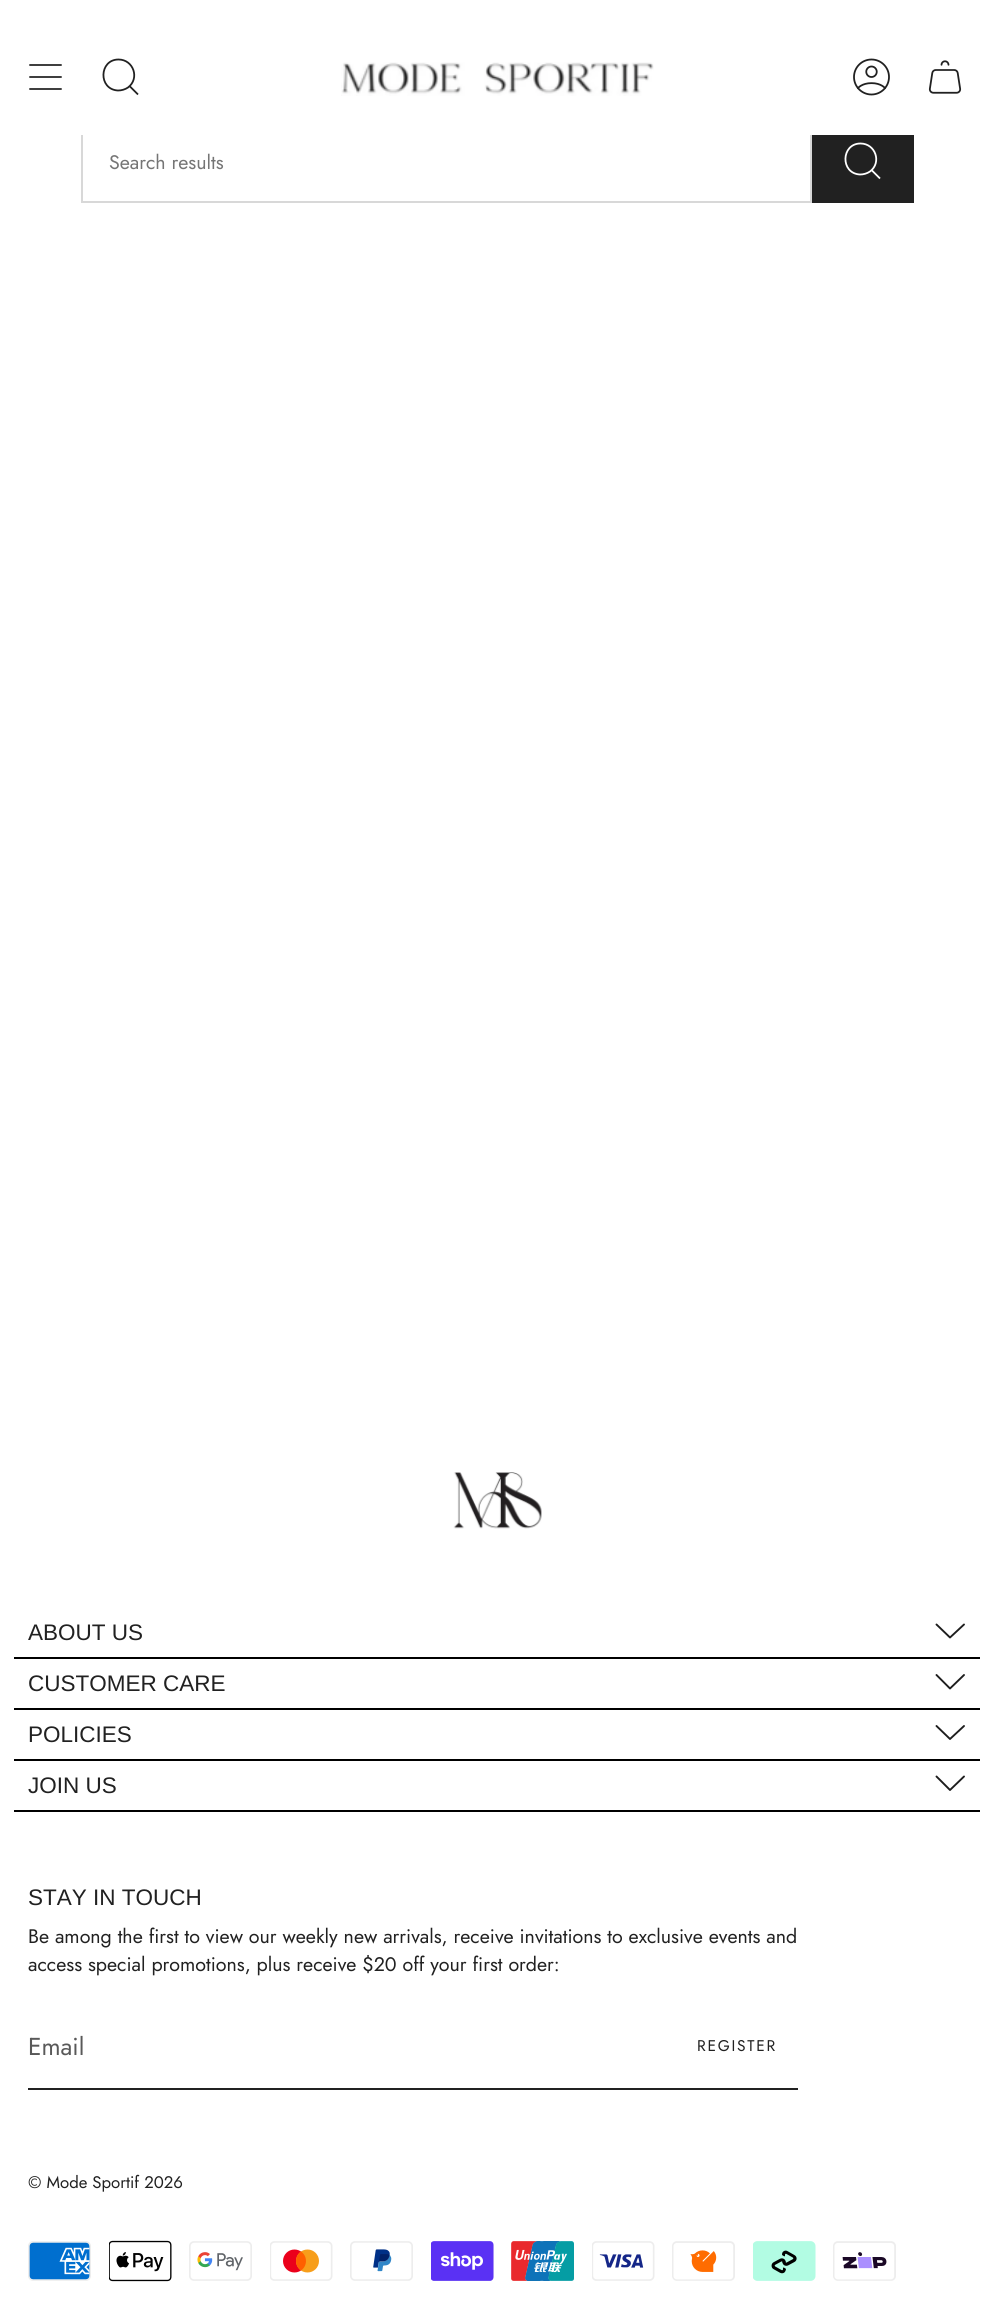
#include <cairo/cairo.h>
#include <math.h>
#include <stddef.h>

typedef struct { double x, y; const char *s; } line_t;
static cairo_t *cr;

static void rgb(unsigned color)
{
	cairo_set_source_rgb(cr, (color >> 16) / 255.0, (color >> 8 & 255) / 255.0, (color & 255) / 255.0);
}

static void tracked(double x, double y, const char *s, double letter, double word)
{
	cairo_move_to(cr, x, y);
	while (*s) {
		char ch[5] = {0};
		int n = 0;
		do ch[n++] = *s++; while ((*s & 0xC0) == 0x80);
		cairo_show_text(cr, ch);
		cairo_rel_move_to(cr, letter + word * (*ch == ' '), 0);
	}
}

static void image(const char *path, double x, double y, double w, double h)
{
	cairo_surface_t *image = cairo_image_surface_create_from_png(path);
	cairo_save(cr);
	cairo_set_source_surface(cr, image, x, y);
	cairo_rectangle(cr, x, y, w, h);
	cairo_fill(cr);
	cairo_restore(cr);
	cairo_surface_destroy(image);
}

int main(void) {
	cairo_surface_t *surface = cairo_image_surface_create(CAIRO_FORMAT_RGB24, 994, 2312);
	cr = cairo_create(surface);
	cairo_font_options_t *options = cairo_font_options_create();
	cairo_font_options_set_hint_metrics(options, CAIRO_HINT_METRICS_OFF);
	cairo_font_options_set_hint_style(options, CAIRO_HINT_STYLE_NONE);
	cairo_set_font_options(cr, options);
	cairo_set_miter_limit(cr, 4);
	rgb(0xffffff);
	cairo_paint(cr);
	cairo_new_path(cr);
	cairo_move_to(cr, 30, 65);
	cairo_line_to(cr, 61, 65);
	cairo_move_to(cr, 30, 77);
	cairo_line_to(cr, 61, 77);
	cairo_move_to(cr, 30, 89);
	cairo_line_to(cr, 61, 89);
	rgb(0x212121);
	cairo_set_line_width(cr, 1.8);
	cairo_set_line_cap(cr, CAIRO_LINE_CAP_ROUND);
	cairo_set_line_join(cr, CAIRO_LINE_JOIN_ROUND);
	cairo_stroke(cr);
	cairo_new_path(cr);
	cairo_move_to(cr, 118.5, 59.5);
	cairo_curve_to(cr, 133.5, 59.5, 140, 78.5, 128, 87.5);
	cairo_curve_to(cr, 125, 89.5, 121.5, 90.5, 118, 90.5);
	cairo_curve_to(cr, 98, 89.5, 99, 59.5, 118.5, 59.5);
	cairo_close_path(cr);
	cairo_move_to(cr, 129.5, 86);
	cairo_line_to(cr, 138, 94.5);
	cairo_set_line_cap(cr, CAIRO_LINE_CAP_BUTT);
	cairo_set_line_join(cr, CAIRO_LINE_JOIN_MITER);
	cairo_stroke(cr);
	image("img/1.png", 341, 62, 313, 34);
	image("img/2.png", 853, 58, 37, 38);
	image("img/3.png", 928, 60, 34, 34);
	cairo_rectangle(cr, 82, 120, 729, 82);
	rgb(0xd8d8d8);
	cairo_set_line_width(cr, 2);
	cairo_stroke(cr);
	rgb(0xffffff);
	cairo_rectangle(cr, 81, 119, 731, 16);
	cairo_fill(cr);
	rgb(0x212121);
	cairo_rectangle(cr, 812, 135, 102, 68);
	cairo_fill(cr);
	cairo_new_path(cr);
	cairo_move_to(cr, 860.5, 143.5);
	cairo_curve_to(cr, 875.5, 143.5, 882, 162.5, 870, 171.5);
	cairo_curve_to(cr, 867, 173.5, 863.5, 174.5, 860, 174.5);
	cairo_curve_to(cr, 840, 173.5, 841, 143.5, 860.5, 143.5);
	cairo_close_path(cr);
	cairo_move_to(cr, 871.5, 170);
	cairo_line_to(cr, 880, 178.5);
	rgb(0xffffff);
	cairo_set_line_width(cr, 1.8);
	cairo_stroke(cr);
	image("img/4.png", 453, 1472, 89, 57);
	rgb(0x000000);
	cairo_rectangle(cr, 14, 1657, 966, 2);
	cairo_fill(cr);
	cairo_new_path(cr);
	cairo_move_to(cr, 936.5, 1624.5);
	cairo_line_to(cr, 950, 1637.5);
	cairo_move_to(cr, 950, 1637.5);
	cairo_line_to(cr, 964, 1624.5);
	rgb(0x1d1d1d);
	cairo_set_line_width(cr, 1.9);
	cairo_set_line_cap(cr, CAIRO_LINE_CAP_ROUND);
	cairo_stroke(cr);
	rgb(0x000000);
	cairo_rectangle(cr, 14, 1708, 966, 2);
	cairo_fill(cr);
	cairo_new_path(cr);
	cairo_move_to(cr, 936.5, 1675);
	cairo_line_to(cr, 950, 1688.5);
	cairo_move_to(cr, 950, 1688.5);
	cairo_line_to(cr, 964, 1675);
	rgb(0x1d1d1d);
	cairo_stroke(cr);
	rgb(0x000000);
	cairo_rectangle(cr, 14, 1759, 966, 2);
	cairo_fill(cr);
	cairo_new_path(cr);
	cairo_move_to(cr, 936.5, 1726);
	cairo_line_to(cr, 950, 1739);
	cairo_move_to(cr, 950, 1739);
	cairo_line_to(cr, 964, 1726);
	rgb(0x1d1d1d);
	cairo_stroke(cr);
	rgb(0x000000);
	cairo_rectangle(cr, 14, 1810, 966, 2);
	cairo_fill(cr);
	cairo_new_path(cr);
	cairo_move_to(cr, 936.5, 1776.5);
	cairo_line_to(cr, 950, 1790);
	cairo_move_to(cr, 950, 1790);
	cairo_line_to(cr, 964, 1776.5);
	rgb(0x1d1d1d);
	cairo_stroke(cr);
	rgb(0x212121);
	cairo_rectangle(cr, 28, 2088, 770, 2);
	cairo_fill(cr);
	image("img/5.png", 28, 2241, 63, 40);
	image("img/6.png", 109, 2240, 63, 42);
	image("img/7.png", 189, 2241, 63, 40);
	image("img/8.png", 270, 2241, 63, 40);
	image("img/9.png", 350, 2241, 63, 40);
	image("img/10.png", 431, 2241, 63, 40);
	image("img/11.png", 511, 2241, 63, 40);
	image("img/12.png", 592, 2241, 63, 40);
	image("img/13.png", 672, 2241, 63, 40);
	image("img/14.png", 753, 2241, 63, 40);
	image("img/15.png", 833, 2241, 63, 40);
	cairo_select_font_face(cr, "Jost", CAIRO_FONT_SLANT_NORMAL, CAIRO_FONT_WEIGHT_NORMAL);
	cairo_set_font_size(cr, 19.6);
	rgb(0x757575);
	cairo_move_to(cr, 109, 169);
	cairo_show_text(cr, "Search results");
	cairo_select_font_face(cr, "Liberation Sans", CAIRO_FONT_SLANT_NORMAL, CAIRO_FONT_WEIGHT_NORMAL);
	cairo_set_font_size(cr, 22.5);
	rgb(0x212121);
	{
		static const line_t items[] = {
			{28, 1640, "ABOUT US"},
			{28, 1691, "CUSTOMER CARE"},
			{28, 1742, "POLICIES"},
			{28, 1793, "JOIN US"},
			{28, 1905, "STAY IN TOUCH"},
		};
		for (size_t i = 0; i < sizeof items / sizeof *items; i++) {
			cairo_move_to(cr, items[i].x, items[i].y);
			cairo_show_text(cr, items[i].s);
		}
	}
	cairo_select_font_face(cr, "Jost", CAIRO_FONT_SLANT_NORMAL, CAIRO_FONT_WEIGHT_NORMAL);
	cairo_set_font_size(cr, 19.6);
	cairo_move_to(cr, 28, 1943);
	cairo_show_text(cr, "Be among the first to view our weekly new arrivals, receive invitations to exclusive events and");
	cairo_move_to(cr, 28, 1971);
	cairo_show_text(cr, "access special promotions, plus receive $20 off your first order:");
	cairo_set_font_size(cr, 24.5);
	rgb(0x595959);
	cairo_move_to(cr, 28, 2055);
	cairo_show_text(cr, "Email");
	cairo_set_font_size(cr, 15.5);
	rgb(0x212121);
	tracked(697, 2051, "REGISTER", 1.75, 0);
	cairo_set_font_size(cr, 16.75);
	cairo_move_to(cr, 28, 2188);
	cairo_show_text(cr, "© Mode Sportif 2026");
	cairo_surface_write_to_png(surface, "page.png");
	cairo_font_options_destroy(options);
	cairo_destroy(cr);
	cairo_surface_destroy(surface);
	return 0;
}
